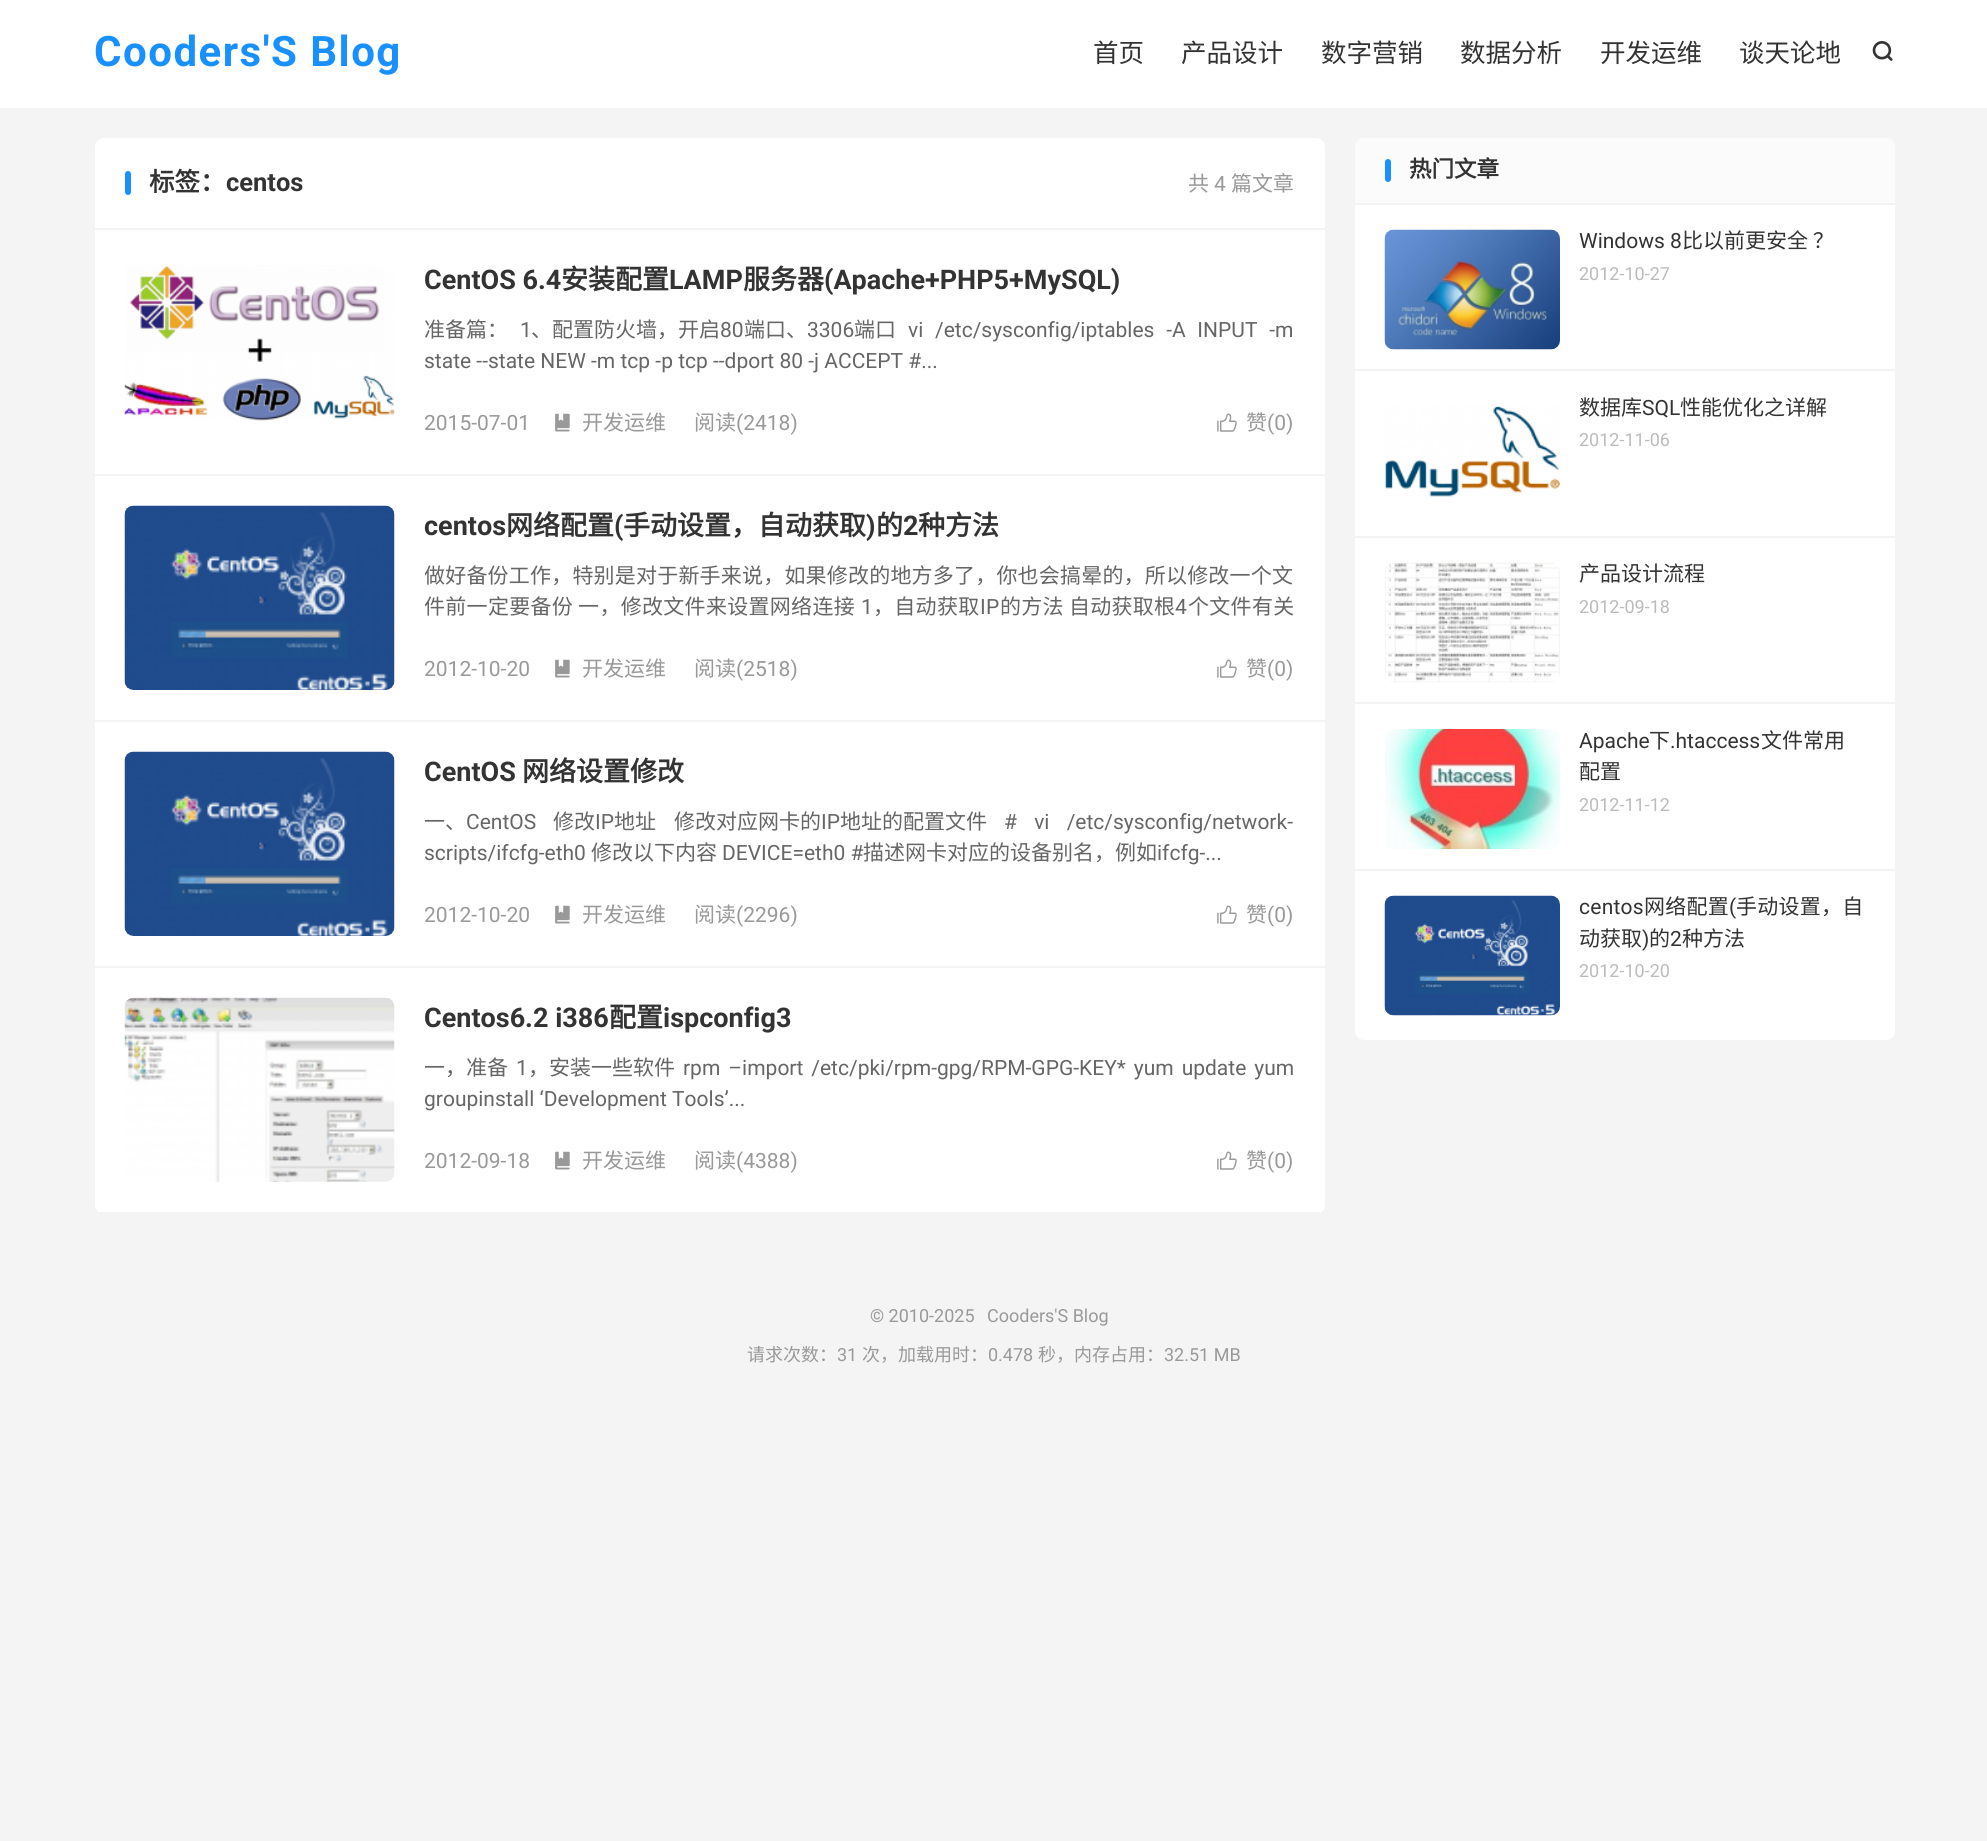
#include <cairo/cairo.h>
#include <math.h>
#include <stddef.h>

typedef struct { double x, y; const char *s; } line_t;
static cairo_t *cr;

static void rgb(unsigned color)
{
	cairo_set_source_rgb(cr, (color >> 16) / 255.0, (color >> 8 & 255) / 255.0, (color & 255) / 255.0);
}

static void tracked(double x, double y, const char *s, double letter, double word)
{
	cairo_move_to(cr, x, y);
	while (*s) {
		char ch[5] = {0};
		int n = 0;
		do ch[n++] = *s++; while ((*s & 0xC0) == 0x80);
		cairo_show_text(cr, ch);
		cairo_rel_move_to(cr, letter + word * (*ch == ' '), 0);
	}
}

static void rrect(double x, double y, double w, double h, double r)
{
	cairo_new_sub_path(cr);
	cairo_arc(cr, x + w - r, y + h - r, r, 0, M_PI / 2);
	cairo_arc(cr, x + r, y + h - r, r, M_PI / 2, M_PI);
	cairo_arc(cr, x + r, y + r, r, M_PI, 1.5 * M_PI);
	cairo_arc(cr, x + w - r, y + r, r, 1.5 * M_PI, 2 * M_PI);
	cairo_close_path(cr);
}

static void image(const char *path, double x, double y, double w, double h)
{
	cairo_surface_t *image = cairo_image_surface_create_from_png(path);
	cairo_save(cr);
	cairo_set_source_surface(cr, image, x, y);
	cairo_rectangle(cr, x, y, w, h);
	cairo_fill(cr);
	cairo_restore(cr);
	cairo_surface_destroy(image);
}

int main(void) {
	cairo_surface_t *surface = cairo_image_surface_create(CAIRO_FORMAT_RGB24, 1987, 1841);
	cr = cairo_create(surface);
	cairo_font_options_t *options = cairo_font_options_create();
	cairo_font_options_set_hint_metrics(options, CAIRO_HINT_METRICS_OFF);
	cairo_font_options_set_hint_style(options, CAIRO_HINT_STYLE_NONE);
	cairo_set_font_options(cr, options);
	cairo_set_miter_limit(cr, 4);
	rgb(0xf4f4f4);
	cairo_paint(cr);
	rgb(0xffffff);
	cairo_rectangle(cr, 0, 0, 1987, 108);
	cairo_fill(cr);
	image("img/1.png", 1872, 41, 21, 20);
	cairo_new_path(cr);
	cairo_move_to(cr, 104, 138);
	cairo_line_to(cr, 1316, 138);
	cairo_curve_to(cr, 1321, 138, 1325, 142, 1325, 147);
	cairo_line_to(cr, 1325, 230);
	cairo_line_to(cr, 95, 230);
	cairo_line_to(cr, 95, 147);
	cairo_curve_to(cr, 95, 142, 99, 138, 104, 138);
	cairo_close_path(cr);
	cairo_fill(cr);
	rgb(0xf3f3f3);
	cairo_rectangle(cr, 95, 228, 1230, 2);
	cairo_fill(cr);
	rgb(0x1890ff);
	rrect(125, 171, 6, 24, 3);
	cairo_fill(cr);
	rgb(0xffffff);
	cairo_rectangle(cr, 95, 230, 1230, 244);
	cairo_fill(cr);
	image("img/2.png", 124, 265, 271, 156);
	image("img/3.png", 555, 413, 15, 19);
	image("img/4.png", 1217, 413, 20, 19);
	cairo_rectangle(cr, 95, 476, 1230, 244);
	cairo_fill(cr);
	image("img/5.png", 124, 505, 271, 185);
	image("img/3.png", 555, 659, 15, 19);
	image("img/4.png", 1217, 659, 20, 19);
	cairo_rectangle(cr, 95, 722, 1230, 244);
	cairo_fill(cr);
	image("img/6.png", 124, 751, 271, 185);
	image("img/3.png", 555, 905, 15, 19);
	image("img/4.png", 1217, 905, 20, 19);
	cairo_new_path(cr);
	cairo_move_to(cr, 95, 968);
	cairo_line_to(cr, 1325, 968);
	cairo_line_to(cr, 1325, 1205);
	cairo_curve_to(cr, 1325, 1210, 1321, 1214, 1316, 1214);
	cairo_line_to(cr, 104, 1214);
	cairo_curve_to(cr, 99, 1214, 95, 1210, 95, 1205);
	cairo_close_path(cr);
	cairo_fill(cr);
	rgb(0xf3f3f3);
	cairo_rectangle(cr, 99, 1212, 1221, 2);
	cairo_fill(cr);
	image("img/7.png", 124, 997, 271, 185);
	image("img/3.png", 555, 1151, 15, 19);
	image("img/4.png", 1217, 1151, 20, 19);
	rgb(0xffffff);
	rrect(1355, 138, 540, 902, 9);
	cairo_fill(cr);
	rgb(0xfbfbfb);
	cairo_new_path(cr);
	cairo_move_to(cr, 1364, 138);
	cairo_line_to(cr, 1886, 138);
	cairo_curve_to(cr, 1891, 138, 1895, 142, 1895, 147);
	cairo_line_to(cr, 1895, 204);
	cairo_line_to(cr, 1355, 204);
	cairo_line_to(cr, 1355, 147);
	cairo_curve_to(cr, 1355, 142, 1359, 138, 1364, 138);
	cairo_close_path(cr);
	cairo_fill(cr);
	rgb(0xf3f3f3);
	cairo_rectangle(cr, 1355, 203, 540, 2);
	cairo_fill(cr);
	rgb(0x1890ff);
	rrect(1385, 159, 6, 23, 3);
	cairo_fill(cr);
	rgb(0xf3f3f3);
	cairo_rectangle(cr, 1355, 369, 540, 2);
	cairo_fill(cr);
	image("img/8.png", 1384, 229, 176, 121);
	cairo_rectangle(cr, 1355, 536, 540, 2);
	cairo_fill(cr);
	image("img/9.png", 1385, 406, 175, 91);
	cairo_rectangle(cr, 1355, 702, 540, 2);
	cairo_fill(cr);
	image("img/10.png", 1385, 562, 175, 121);
	cairo_rectangle(cr, 1355, 869, 540, 2);
	cairo_fill(cr);
	image("img/11.png", 1385, 729, 175, 120);
	image("img/12.png", 1384, 895, 176, 121);
	cairo_select_font_face(cr, "Roboto", CAIRO_FONT_SLANT_NORMAL, CAIRO_FONT_WEIGHT_BOLD);
	cairo_set_font_size(cr, 42);
	rgb(0x1890ff);
	tracked(94, 66, "Cooders'S Blog", 1.5, 0);
	cairo_select_font_face(cr, "Noto Sans CJK SC", CAIRO_FONT_SLANT_NORMAL, CAIRO_FONT_WEIGHT_NORMAL);
	cairo_set_font_size(cr, 25.5);
	rgb(0x333333);
	{
		static const line_t items[] = {
			{1093, 62, "首页"},
			{1181, 62, "产品设计"},
			{1321, 62, "数字营销"},
			{1460, 62, "数据分析"},
			{1600, 62, "开发运维"},
			{1739, 62, "谈天论地"},
		};
		for (size_t i = 0; i < sizeof items / sizeof *items; i++) {
			cairo_move_to(cr, items[i].x, items[i].y);
			cairo_show_text(cr, items[i].s);
		}
	}
	cairo_select_font_face(cr, "Noto Sans CJK SC", CAIRO_FONT_SLANT_NORMAL, CAIRO_FONT_WEIGHT_BOLD);
	cairo_move_to(cr, 149, 191);
	cairo_show_text(cr, "标签：");
	cairo_select_font_face(cr, "Roboto", CAIRO_FONT_SLANT_NORMAL, CAIRO_FONT_WEIGHT_BOLD);
	cairo_move_to(cr, 226, 191);
	cairo_show_text(cr, "centos");
	cairo_select_font_face(cr, "Noto Sans CJK SC", CAIRO_FONT_SLANT_NORMAL, CAIRO_FONT_WEIGHT_NORMAL);
	cairo_set_font_size(cr, 21);
	rgb(0x999999);
	cairo_move_to(cr, 1188, 191);
	cairo_show_text(cr, "共");
	cairo_select_font_face(cr, "Roboto", CAIRO_FONT_SLANT_NORMAL, CAIRO_FONT_WEIGHT_NORMAL);
	cairo_move_to(cr, 1214, 191);
	cairo_show_text(cr, "4");
	cairo_select_font_face(cr, "Noto Sans CJK SC", CAIRO_FONT_SLANT_NORMAL, CAIRO_FONT_WEIGHT_NORMAL);
	cairo_move_to(cr, 1231, 191);
	cairo_show_text(cr, "篇文章");
	cairo_select_font_face(cr, "Roboto", CAIRO_FONT_SLANT_NORMAL, CAIRO_FONT_WEIGHT_BOLD);
	cairo_set_font_size(cr, 27);
	rgb(0x333333);
	cairo_move_to(cr, 424, 289);
	cairo_show_text(cr, "CentOS 6.4");
	cairo_select_font_face(cr, "Noto Sans CJK SC", CAIRO_FONT_SLANT_NORMAL, CAIRO_FONT_WEIGHT_BOLD);
	cairo_move_to(cr, 561, 289);
	cairo_show_text(cr, "安装配置");
	cairo_select_font_face(cr, "Roboto", CAIRO_FONT_SLANT_NORMAL, CAIRO_FONT_WEIGHT_BOLD);
	cairo_move_to(cr, 669, 289);
	cairo_show_text(cr, "LAMP");
	cairo_select_font_face(cr, "Noto Sans CJK SC", CAIRO_FONT_SLANT_NORMAL, CAIRO_FONT_WEIGHT_BOLD);
	cairo_move_to(cr, 743, 289);
	cairo_show_text(cr, "服务器");
	cairo_select_font_face(cr, "Roboto", CAIRO_FONT_SLANT_NORMAL, CAIRO_FONT_WEIGHT_BOLD);
	cairo_move_to(cr, 824, 289);
	cairo_show_text(cr, "(Apache+PHP5+MySQL)");
	cairo_select_font_face(cr, "Noto Sans CJK SC", CAIRO_FONT_SLANT_NORMAL, CAIRO_FONT_WEIGHT_NORMAL);
	cairo_set_font_size(cr, 21);
	rgb(0x666666);
	cairo_move_to(cr, 424, 337);
	cairo_show_text(cr, "准备篇：");
	cairo_select_font_face(cr, "Roboto", CAIRO_FONT_SLANT_NORMAL, CAIRO_FONT_WEIGHT_NORMAL);
	cairo_move_to(cr, 520, 337);
	cairo_show_text(cr, "1");
	cairo_select_font_face(cr, "Noto Sans CJK SC", CAIRO_FONT_SLANT_NORMAL, CAIRO_FONT_WEIGHT_NORMAL);
	cairo_move_to(cr, 531, 337);
	cairo_show_text(cr, "、配置防火墙，开启");
	cairo_select_font_face(cr, "Roboto", CAIRO_FONT_SLANT_NORMAL, CAIRO_FONT_WEIGHT_NORMAL);
	cairo_move_to(cr, 720, 337);
	cairo_show_text(cr, "80");
	cairo_select_font_face(cr, "Noto Sans CJK SC", CAIRO_FONT_SLANT_NORMAL, CAIRO_FONT_WEIGHT_NORMAL);
	cairo_move_to(cr, 744, 337);
	cairo_show_text(cr, "端口、");
	cairo_select_font_face(cr, "Roboto", CAIRO_FONT_SLANT_NORMAL, CAIRO_FONT_WEIGHT_NORMAL);
	cairo_move_to(cr, 807, 337);
	cairo_show_text(cr, "3306");
	cairo_select_font_face(cr, "Noto Sans CJK SC", CAIRO_FONT_SLANT_NORMAL, CAIRO_FONT_WEIGHT_NORMAL);
	cairo_move_to(cr, 854, 337);
	cairo_show_text(cr, "端口");
	cairo_select_font_face(cr, "Roboto", CAIRO_FONT_SLANT_NORMAL, CAIRO_FONT_WEIGHT_NORMAL);
	tracked(908, 337, "vi /etc/sysconfig/iptables -A INPUT -m", 0, 6.5);
	cairo_move_to(cr, 424, 368);
	cairo_show_text(cr, "state --state NEW -m tcp -p tcp --dport 80 -j ACCEPT #...");
	rgb(0x999999);
	cairo_move_to(cr, 424, 430);
	cairo_show_text(cr, "2015-07-01");
	cairo_select_font_face(cr, "Noto Sans CJK SC", CAIRO_FONT_SLANT_NORMAL, CAIRO_FONT_WEIGHT_NORMAL);
	cairo_move_to(cr, 582, 430);
	cairo_show_text(cr, "开发运维");
	cairo_move_to(cr, 694, 430);
	cairo_show_text(cr, "阅读");
	cairo_select_font_face(cr, "Roboto", CAIRO_FONT_SLANT_NORMAL, CAIRO_FONT_WEIGHT_NORMAL);
	cairo_move_to(cr, 736, 430);
	cairo_show_text(cr, "(2418)");
	cairo_select_font_face(cr, "Noto Sans CJK SC", CAIRO_FONT_SLANT_NORMAL, CAIRO_FONT_WEIGHT_NORMAL);
	cairo_move_to(cr, 1246, 430);
	cairo_show_text(cr, "赞");
	cairo_select_font_face(cr, "Roboto", CAIRO_FONT_SLANT_NORMAL, CAIRO_FONT_WEIGHT_NORMAL);
	cairo_move_to(cr, 1267, 430);
	cairo_show_text(cr, "(0)");
	cairo_select_font_face(cr, "Roboto", CAIRO_FONT_SLANT_NORMAL, CAIRO_FONT_WEIGHT_BOLD);
	cairo_set_font_size(cr, 27);
	rgb(0x333333);
	cairo_move_to(cr, 424, 535);
	cairo_show_text(cr, "centos");
	cairo_select_font_face(cr, "Noto Sans CJK SC", CAIRO_FONT_SLANT_NORMAL, CAIRO_FONT_WEIGHT_BOLD);
	cairo_move_to(cr, 506, 535);
	cairo_show_text(cr, "网络配置");
	cairo_select_font_face(cr, "Roboto", CAIRO_FONT_SLANT_NORMAL, CAIRO_FONT_WEIGHT_BOLD);
	cairo_move_to(cr, 614, 535);
	cairo_show_text(cr, "(");
	cairo_select_font_face(cr, "Noto Sans CJK SC", CAIRO_FONT_SLANT_NORMAL, CAIRO_FONT_WEIGHT_BOLD);
	cairo_move_to(cr, 623, 535);
	cairo_show_text(cr, "手动设置，自动获取");
	cairo_select_font_face(cr, "Roboto", CAIRO_FONT_SLANT_NORMAL, CAIRO_FONT_WEIGHT_BOLD);
	cairo_move_to(cr, 866, 535);
	cairo_show_text(cr, ")");
	cairo_select_font_face(cr, "Noto Sans CJK SC", CAIRO_FONT_SLANT_NORMAL, CAIRO_FONT_WEIGHT_BOLD);
	cairo_move_to(cr, 876, 535);
	cairo_show_text(cr, "的");
	cairo_select_font_face(cr, "Roboto", CAIRO_FONT_SLANT_NORMAL, CAIRO_FONT_WEIGHT_BOLD);
	cairo_move_to(cr, 903, 535);
	cairo_show_text(cr, "2");
	cairo_select_font_face(cr, "Noto Sans CJK SC", CAIRO_FONT_SLANT_NORMAL, CAIRO_FONT_WEIGHT_BOLD);
	cairo_move_to(cr, 918, 535);
	cairo_show_text(cr, "种方法");
	cairo_save(cr);
	cairo_rectangle(cr, 425, 561, 870, 63);
	cairo_clip(cr);
	cairo_select_font_face(cr, "Noto Sans CJK SC", CAIRO_FONT_SLANT_NORMAL, CAIRO_FONT_WEIGHT_NORMAL);
	cairo_set_font_size(cr, 21);
	rgb(0x666666);
	tracked(424, 583, "做好备份工作，特别是对于新手来说，如果修改的地方多了，你也会搞晕的，所以修改一个文", 0.2, 0);
	cairo_restore(cr);
	cairo_select_font_face(cr, "Noto Sans CJK SC", CAIRO_FONT_SLANT_NORMAL, CAIRO_FONT_WEIGHT_NORMAL);
	cairo_set_font_size(cr, 21);
	rgb(0x666666);
	tracked(424, 614, "件前一定要备份 一，修改文件来设置网络连接", 0.3, 0);
	cairo_select_font_face(cr, "Roboto", CAIRO_FONT_SLANT_NORMAL, CAIRO_FONT_WEIGHT_NORMAL);
	tracked(861, 614, "1", 0.3, 0);
	cairo_select_font_face(cr, "Noto Sans CJK SC", CAIRO_FONT_SLANT_NORMAL, CAIRO_FONT_WEIGHT_NORMAL);
	tracked(873, 614, "，自动获取", 0.3, 0);
	cairo_select_font_face(cr, "Roboto", CAIRO_FONT_SLANT_NORMAL, CAIRO_FONT_WEIGHT_NORMAL);
	tracked(980, 614, "IP", 0.3, 0);
	cairo_select_font_face(cr, "Noto Sans CJK SC", CAIRO_FONT_SLANT_NORMAL, CAIRO_FONT_WEIGHT_NORMAL);
	tracked(1000, 614, "的方法 自动获取根", 0.3, 0);
	cairo_select_font_face(cr, "Roboto", CAIRO_FONT_SLANT_NORMAL, CAIRO_FONT_WEIGHT_NORMAL);
	tracked(1175, 614, "4", 0.3, 0);
	cairo_select_font_face(cr, "Noto Sans CJK SC", CAIRO_FONT_SLANT_NORMAL, CAIRO_FONT_WEIGHT_NORMAL);
	tracked(1188, 614, "个文件有关", 0.3, 0);
	cairo_select_font_face(cr, "Roboto", CAIRO_FONT_SLANT_NORMAL, CAIRO_FONT_WEIGHT_NORMAL);
	rgb(0x999999);
	cairo_move_to(cr, 424, 676);
	cairo_show_text(cr, "2012-10-20");
	cairo_select_font_face(cr, "Noto Sans CJK SC", CAIRO_FONT_SLANT_NORMAL, CAIRO_FONT_WEIGHT_NORMAL);
	cairo_move_to(cr, 582, 676);
	cairo_show_text(cr, "开发运维");
	cairo_move_to(cr, 694, 676);
	cairo_show_text(cr, "阅读");
	cairo_select_font_face(cr, "Roboto", CAIRO_FONT_SLANT_NORMAL, CAIRO_FONT_WEIGHT_NORMAL);
	cairo_move_to(cr, 736, 676);
	cairo_show_text(cr, "(2518)");
	cairo_select_font_face(cr, "Noto Sans CJK SC", CAIRO_FONT_SLANT_NORMAL, CAIRO_FONT_WEIGHT_NORMAL);
	cairo_move_to(cr, 1246, 676);
	cairo_show_text(cr, "赞");
	cairo_select_font_face(cr, "Roboto", CAIRO_FONT_SLANT_NORMAL, CAIRO_FONT_WEIGHT_NORMAL);
	cairo_move_to(cr, 1267, 676);
	cairo_show_text(cr, "(0)");
	cairo_select_font_face(cr, "Roboto", CAIRO_FONT_SLANT_NORMAL, CAIRO_FONT_WEIGHT_BOLD);
	cairo_set_font_size(cr, 27);
	rgb(0x333333);
	cairo_move_to(cr, 424, 781);
	cairo_show_text(cr, "CentOS");
	cairo_select_font_face(cr, "Noto Sans CJK SC", CAIRO_FONT_SLANT_NORMAL, CAIRO_FONT_WEIGHT_BOLD);
	cairo_move_to(cr, 522, 781);
	cairo_show_text(cr, "网络设置修改");
	cairo_select_font_face(cr, "Noto Sans CJK SC", CAIRO_FONT_SLANT_NORMAL, CAIRO_FONT_WEIGHT_NORMAL);
	cairo_set_font_size(cr, 21);
	rgb(0x666666);
	cairo_move_to(cr, 424, 829);
	cairo_show_text(cr, "一、");
	cairo_select_font_face(cr, "Roboto", CAIRO_FONT_SLANT_NORMAL, CAIRO_FONT_WEIGHT_NORMAL);
	cairo_move_to(cr, 466, 829);
	cairo_show_text(cr, "CentOS");
	cairo_select_font_face(cr, "Noto Sans CJK SC", CAIRO_FONT_SLANT_NORMAL, CAIRO_FONT_WEIGHT_NORMAL);
	cairo_move_to(cr, 553, 829);
	cairo_show_text(cr, "修改");
	cairo_select_font_face(cr, "Roboto", CAIRO_FONT_SLANT_NORMAL, CAIRO_FONT_WEIGHT_NORMAL);
	cairo_move_to(cr, 595, 829);
	cairo_show_text(cr, "IP");
	cairo_select_font_face(cr, "Noto Sans CJK SC", CAIRO_FONT_SLANT_NORMAL, CAIRO_FONT_WEIGHT_NORMAL);
	cairo_move_to(cr, 614, 829);
	cairo_show_text(cr, "地址");
	cairo_move_to(cr, 674, 829);
	cairo_show_text(cr, "修改对应网卡的");
	cairo_select_font_face(cr, "Roboto", CAIRO_FONT_SLANT_NORMAL, CAIRO_FONT_WEIGHT_NORMAL);
	cairo_move_to(cr, 821, 829);
	cairo_show_text(cr, "IP");
	cairo_select_font_face(cr, "Noto Sans CJK SC", CAIRO_FONT_SLANT_NORMAL, CAIRO_FONT_WEIGHT_NORMAL);
	cairo_move_to(cr, 840, 829);
	cairo_show_text(cr, "地址的配置文件");
	cairo_select_font_face(cr, "Roboto", CAIRO_FONT_SLANT_NORMAL, CAIRO_FONT_WEIGHT_NORMAL);
	tracked(1004, 829, "# vi /etc/sysconfig/network-", 0, 12);
	cairo_move_to(cr, 424, 860);
	cairo_show_text(cr, "scripts/ifcfg-eth0");
	cairo_select_font_face(cr, "Noto Sans CJK SC", CAIRO_FONT_SLANT_NORMAL, CAIRO_FONT_WEIGHT_NORMAL);
	cairo_move_to(cr, 591, 860);
	cairo_show_text(cr, "修改以下内容");
	cairo_select_font_face(cr, "Roboto", CAIRO_FONT_SLANT_NORMAL, CAIRO_FONT_WEIGHT_NORMAL);
	cairo_move_to(cr, 722, 860);
	cairo_show_text(cr, "DEVICE=eth0 #");
	cairo_select_font_face(cr, "Noto Sans CJK SC", CAIRO_FONT_SLANT_NORMAL, CAIRO_FONT_WEIGHT_NORMAL);
	cairo_move_to(cr, 863, 860);
	cairo_show_text(cr, "描述网卡对应的设备别名，例如");
	cairo_select_font_face(cr, "Roboto", CAIRO_FONT_SLANT_NORMAL, CAIRO_FONT_WEIGHT_NORMAL);
	cairo_move_to(cr, 1157, 860);
	cairo_show_text(cr, "ifcfg-...");
	rgb(0x999999);
	cairo_move_to(cr, 424, 922);
	cairo_show_text(cr, "2012-10-20");
	cairo_select_font_face(cr, "Noto Sans CJK SC", CAIRO_FONT_SLANT_NORMAL, CAIRO_FONT_WEIGHT_NORMAL);
	cairo_move_to(cr, 582, 922);
	cairo_show_text(cr, "开发运维");
	cairo_move_to(cr, 694, 922);
	cairo_show_text(cr, "阅读");
	cairo_select_font_face(cr, "Roboto", CAIRO_FONT_SLANT_NORMAL, CAIRO_FONT_WEIGHT_NORMAL);
	cairo_move_to(cr, 736, 922);
	cairo_show_text(cr, "(2296)");
	cairo_select_font_face(cr, "Noto Sans CJK SC", CAIRO_FONT_SLANT_NORMAL, CAIRO_FONT_WEIGHT_NORMAL);
	cairo_move_to(cr, 1246, 922);
	cairo_show_text(cr, "赞");
	cairo_select_font_face(cr, "Roboto", CAIRO_FONT_SLANT_NORMAL, CAIRO_FONT_WEIGHT_NORMAL);
	cairo_move_to(cr, 1267, 922);
	cairo_show_text(cr, "(0)");
	cairo_select_font_face(cr, "Roboto", CAIRO_FONT_SLANT_NORMAL, CAIRO_FONT_WEIGHT_BOLD);
	cairo_set_font_size(cr, 27);
	rgb(0x333333);
	cairo_move_to(cr, 424, 1027);
	cairo_show_text(cr, "Centos6.2 i386");
	cairo_select_font_face(cr, "Noto Sans CJK SC", CAIRO_FONT_SLANT_NORMAL, CAIRO_FONT_WEIGHT_BOLD);
	cairo_move_to(cr, 609, 1027);
	cairo_show_text(cr, "配置");
	cairo_select_font_face(cr, "Roboto", CAIRO_FONT_SLANT_NORMAL, CAIRO_FONT_WEIGHT_BOLD);
	cairo_move_to(cr, 663, 1027);
	cairo_show_text(cr, "ispconfig3");
	cairo_select_font_face(cr, "Noto Sans CJK SC", CAIRO_FONT_SLANT_NORMAL, CAIRO_FONT_WEIGHT_NORMAL);
	cairo_set_font_size(cr, 21);
	rgb(0x666666);
	cairo_move_to(cr, 424, 1075);
	cairo_show_text(cr, "一，准备");
	cairo_select_font_face(cr, "Roboto", CAIRO_FONT_SLANT_NORMAL, CAIRO_FONT_WEIGHT_NORMAL);
	cairo_move_to(cr, 516, 1075);
	cairo_show_text(cr, "1");
	cairo_select_font_face(cr, "Noto Sans CJK SC", CAIRO_FONT_SLANT_NORMAL, CAIRO_FONT_WEIGHT_NORMAL);
	cairo_move_to(cr, 528, 1075);
	cairo_show_text(cr, "，安装一些软件");
	cairo_select_font_face(cr, "Roboto", CAIRO_FONT_SLANT_NORMAL, CAIRO_FONT_WEIGHT_NORMAL);
	tracked(683, 1075, "rpm –import /etc/pki/rpm-gpg/RPM-GPG-KEY* yum update yum", 0, 2.75);
	cairo_save(cr);
	cairo_rectangle(cr, 425, 1053, 870, 63);
	cairo_clip(cr);
	cairo_move_to(cr, 424, 1106);
	cairo_show_text(cr, "groupinstall ‘Development Tools’...");
	cairo_restore(cr);
	rgb(0x999999);
	cairo_move_to(cr, 424, 1168);
	cairo_show_text(cr, "2012-09-18");
	cairo_select_font_face(cr, "Noto Sans CJK SC", CAIRO_FONT_SLANT_NORMAL, CAIRO_FONT_WEIGHT_NORMAL);
	cairo_move_to(cr, 582, 1168);
	cairo_show_text(cr, "开发运维");
	cairo_move_to(cr, 694, 1168);
	cairo_show_text(cr, "阅读");
	cairo_select_font_face(cr, "Roboto", CAIRO_FONT_SLANT_NORMAL, CAIRO_FONT_WEIGHT_NORMAL);
	cairo_move_to(cr, 736, 1168);
	cairo_show_text(cr, "(4388)");
	cairo_select_font_face(cr, "Noto Sans CJK SC", CAIRO_FONT_SLANT_NORMAL, CAIRO_FONT_WEIGHT_NORMAL);
	cairo_move_to(cr, 1246, 1168);
	cairo_show_text(cr, "赞");
	cairo_select_font_face(cr, "Roboto", CAIRO_FONT_SLANT_NORMAL, CAIRO_FONT_WEIGHT_NORMAL);
	cairo_move_to(cr, 1267, 1168);
	cairo_show_text(cr, "(0)");
	cairo_select_font_face(cr, "Noto Sans CJK SC", CAIRO_FONT_SLANT_NORMAL, CAIRO_FONT_WEIGHT_BOLD);
	cairo_set_font_size(cr, 22.5);
	rgb(0x333333);
	cairo_move_to(cr, 1409, 177);
	cairo_show_text(cr, "热门文章");
	cairo_select_font_face(cr, "Roboto", CAIRO_FONT_SLANT_NORMAL, CAIRO_FONT_WEIGHT_NORMAL);
	cairo_set_font_size(cr, 21);
	cairo_move_to(cr, 1579, 248);
	cairo_show_text(cr, "Windows 8");
	cairo_select_font_face(cr, "Noto Sans CJK SC", CAIRO_FONT_SLANT_NORMAL, CAIRO_FONT_WEIGHT_NORMAL);
	cairo_move_to(cr, 1682, 248);
	cairo_show_text(cr, "比以前更安全");
	cairo_move_to(cr, 1813, 248);
	cairo_show_text(cr, "？");
	cairo_select_font_face(cr, "Roboto", CAIRO_FONT_SLANT_NORMAL, CAIRO_FONT_WEIGHT_NORMAL);
	cairo_set_font_size(cr, 18);
	rgb(0xbbbbbb);
	cairo_move_to(cr, 1579, 280);
	cairo_show_text(cr, "2012-10-27");
	cairo_save(cr);
	cairo_rectangle(cr, 1580, 393, 285, 32);
	cairo_clip(cr);
	cairo_select_font_face(cr, "Noto Sans CJK SC", CAIRO_FONT_SLANT_NORMAL, CAIRO_FONT_WEIGHT_NORMAL);
	cairo_set_font_size(cr, 21);
	rgb(0x333333);
	cairo_move_to(cr, 1579, 415);
	cairo_show_text(cr, "数据库");
	cairo_restore(cr);
	cairo_set_font_size(cr, 21);
	rgb(0x333333);
	cairo_move_to(cr, 1642, 415);
	cairo_show_text(cr, "SQL");
	cairo_select_font_face(cr, "Noto Sans CJK SC", CAIRO_FONT_SLANT_NORMAL, CAIRO_FONT_WEIGHT_NORMAL);
	cairo_move_to(cr, 1680, 415);
	cairo_show_text(cr, "性能优化之详解");
	cairo_select_font_face(cr, "Roboto", CAIRO_FONT_SLANT_NORMAL, CAIRO_FONT_WEIGHT_NORMAL);
	cairo_set_font_size(cr, 18);
	rgb(0xbbbbbb);
	cairo_move_to(cr, 1579, 446);
	cairo_show_text(cr, "2012-11-06");
	cairo_select_font_face(cr, "Noto Sans CJK SC", CAIRO_FONT_SLANT_NORMAL, CAIRO_FONT_WEIGHT_NORMAL);
	cairo_set_font_size(cr, 21);
	rgb(0x333333);
	cairo_move_to(cr, 1579, 581);
	cairo_show_text(cr, "产品设计流程");
	cairo_select_font_face(cr, "Roboto", CAIRO_FONT_SLANT_NORMAL, CAIRO_FONT_WEIGHT_NORMAL);
	cairo_set_font_size(cr, 18);
	rgb(0xbbbbbb);
	cairo_move_to(cr, 1579, 613);
	cairo_show_text(cr, "2012-09-18");
	cairo_set_font_size(cr, 21);
	rgb(0x333333);
	cairo_move_to(cr, 1579, 748);
	cairo_show_text(cr, "Apache");
	cairo_select_font_face(cr, "Noto Sans CJK SC", CAIRO_FONT_SLANT_NORMAL, CAIRO_FONT_WEIGHT_NORMAL);
	cairo_move_to(cr, 1649, 748);
	cairo_show_text(cr, "下");
	cairo_select_font_face(cr, "Roboto", CAIRO_FONT_SLANT_NORMAL, CAIRO_FONT_WEIGHT_NORMAL);
	cairo_move_to(cr, 1670, 748);
	cairo_show_text(cr, ".htaccess");
	cairo_select_font_face(cr, "Noto Sans CJK SC", CAIRO_FONT_SLANT_NORMAL, CAIRO_FONT_WEIGHT_NORMAL);
	cairo_move_to(cr, 1761, 748);
	cairo_show_text(cr, "文件常用");
	cairo_move_to(cr, 1579, 779);
	cairo_show_text(cr, "配置");
	cairo_select_font_face(cr, "Roboto", CAIRO_FONT_SLANT_NORMAL, CAIRO_FONT_WEIGHT_NORMAL);
	cairo_set_font_size(cr, 18);
	rgb(0xbbbbbb);
	cairo_move_to(cr, 1579, 811);
	cairo_show_text(cr, "2012-11-12");
	cairo_save(cr);
	cairo_rectangle(cr, 1580, 893, 285, 63);
	cairo_clip(cr);
	cairo_set_font_size(cr, 21);
	rgb(0x333333);
	tracked(1579, 914, "centos", 0.25, 0);
	cairo_restore(cr);
	cairo_select_font_face(cr, "Noto Sans CJK SC", CAIRO_FONT_SLANT_NORMAL, CAIRO_FONT_WEIGHT_NORMAL);
	cairo_set_font_size(cr, 21);
	rgb(0x333333);
	tracked(1644, 914, "网络配置", 0.25, 0);
	cairo_select_font_face(cr, "Roboto", CAIRO_FONT_SLANT_NORMAL, CAIRO_FONT_WEIGHT_NORMAL);
	tracked(1729, 914, "(", 0.25, 0);
	cairo_select_font_face(cr, "Noto Sans CJK SC", CAIRO_FONT_SLANT_NORMAL, CAIRO_FONT_WEIGHT_NORMAL);
	tracked(1736, 914, "手动设置，自", 0.25, 0);
	cairo_move_to(cr, 1579, 946);
	cairo_show_text(cr, "动获取");
	cairo_select_font_face(cr, "Roboto", CAIRO_FONT_SLANT_NORMAL, CAIRO_FONT_WEIGHT_NORMAL);
	cairo_move_to(cr, 1642, 946);
	cairo_show_text(cr, ")");
	cairo_select_font_face(cr, "Noto Sans CJK SC", CAIRO_FONT_SLANT_NORMAL, CAIRO_FONT_WEIGHT_NORMAL);
	cairo_move_to(cr, 1649, 946);
	cairo_show_text(cr, "的");
	cairo_select_font_face(cr, "Roboto", CAIRO_FONT_SLANT_NORMAL, CAIRO_FONT_WEIGHT_NORMAL);
	cairo_move_to(cr, 1670, 946);
	cairo_show_text(cr, "2");
	cairo_select_font_face(cr, "Noto Sans CJK SC", CAIRO_FONT_SLANT_NORMAL, CAIRO_FONT_WEIGHT_NORMAL);
	cairo_move_to(cr, 1682, 946);
	cairo_show_text(cr, "种方法");
	cairo_select_font_face(cr, "Roboto", CAIRO_FONT_SLANT_NORMAL, CAIRO_FONT_WEIGHT_NORMAL);
	cairo_set_font_size(cr, 18);
	rgb(0xbbbbbb);
	cairo_move_to(cr, 1579, 977);
	cairo_show_text(cr, "2012-10-20");
	rgb(0x999999);
	cairo_move_to(cr, 870, 1322);
	cairo_show_text(cr, "© 2010-2025");
	cairo_move_to(cr, 987, 1322);
	cairo_show_text(cr, "Cooders'S Blog");
	cairo_select_font_face(cr, "Noto Sans CJK SC", CAIRO_FONT_SLANT_NORMAL, CAIRO_FONT_WEIGHT_NORMAL);
	cairo_move_to(cr, 747, 1361);
	cairo_show_text(cr, "请求次数：");
	cairo_select_font_face(cr, "Roboto", CAIRO_FONT_SLANT_NORMAL, CAIRO_FONT_WEIGHT_NORMAL);
	cairo_move_to(cr, 837, 1361);
	cairo_show_text(cr, "31");
	cairo_select_font_face(cr, "Noto Sans CJK SC", CAIRO_FONT_SLANT_NORMAL, CAIRO_FONT_WEIGHT_NORMAL);
	cairo_move_to(cr, 862, 1361);
	cairo_show_text(cr, "次，加载用时：");
	cairo_select_font_face(cr, "Roboto", CAIRO_FONT_SLANT_NORMAL, CAIRO_FONT_WEIGHT_NORMAL);
	cairo_move_to(cr, 988, 1361);
	cairo_show_text(cr, "0.478");
	cairo_select_font_face(cr, "Noto Sans CJK SC", CAIRO_FONT_SLANT_NORMAL, CAIRO_FONT_WEIGHT_NORMAL);
	cairo_move_to(cr, 1038, 1361);
	cairo_show_text(cr, "秒，内存占用：");
	cairo_select_font_face(cr, "Roboto", CAIRO_FONT_SLANT_NORMAL, CAIRO_FONT_WEIGHT_NORMAL);
	cairo_move_to(cr, 1164, 1361);
	cairo_show_text(cr, "32.51 MB");
	cairo_surface_write_to_png(surface, "page.png");
	cairo_font_options_destroy(options);
	cairo_destroy(cr);
	cairo_surface_destroy(surface);
	return 0;
}
